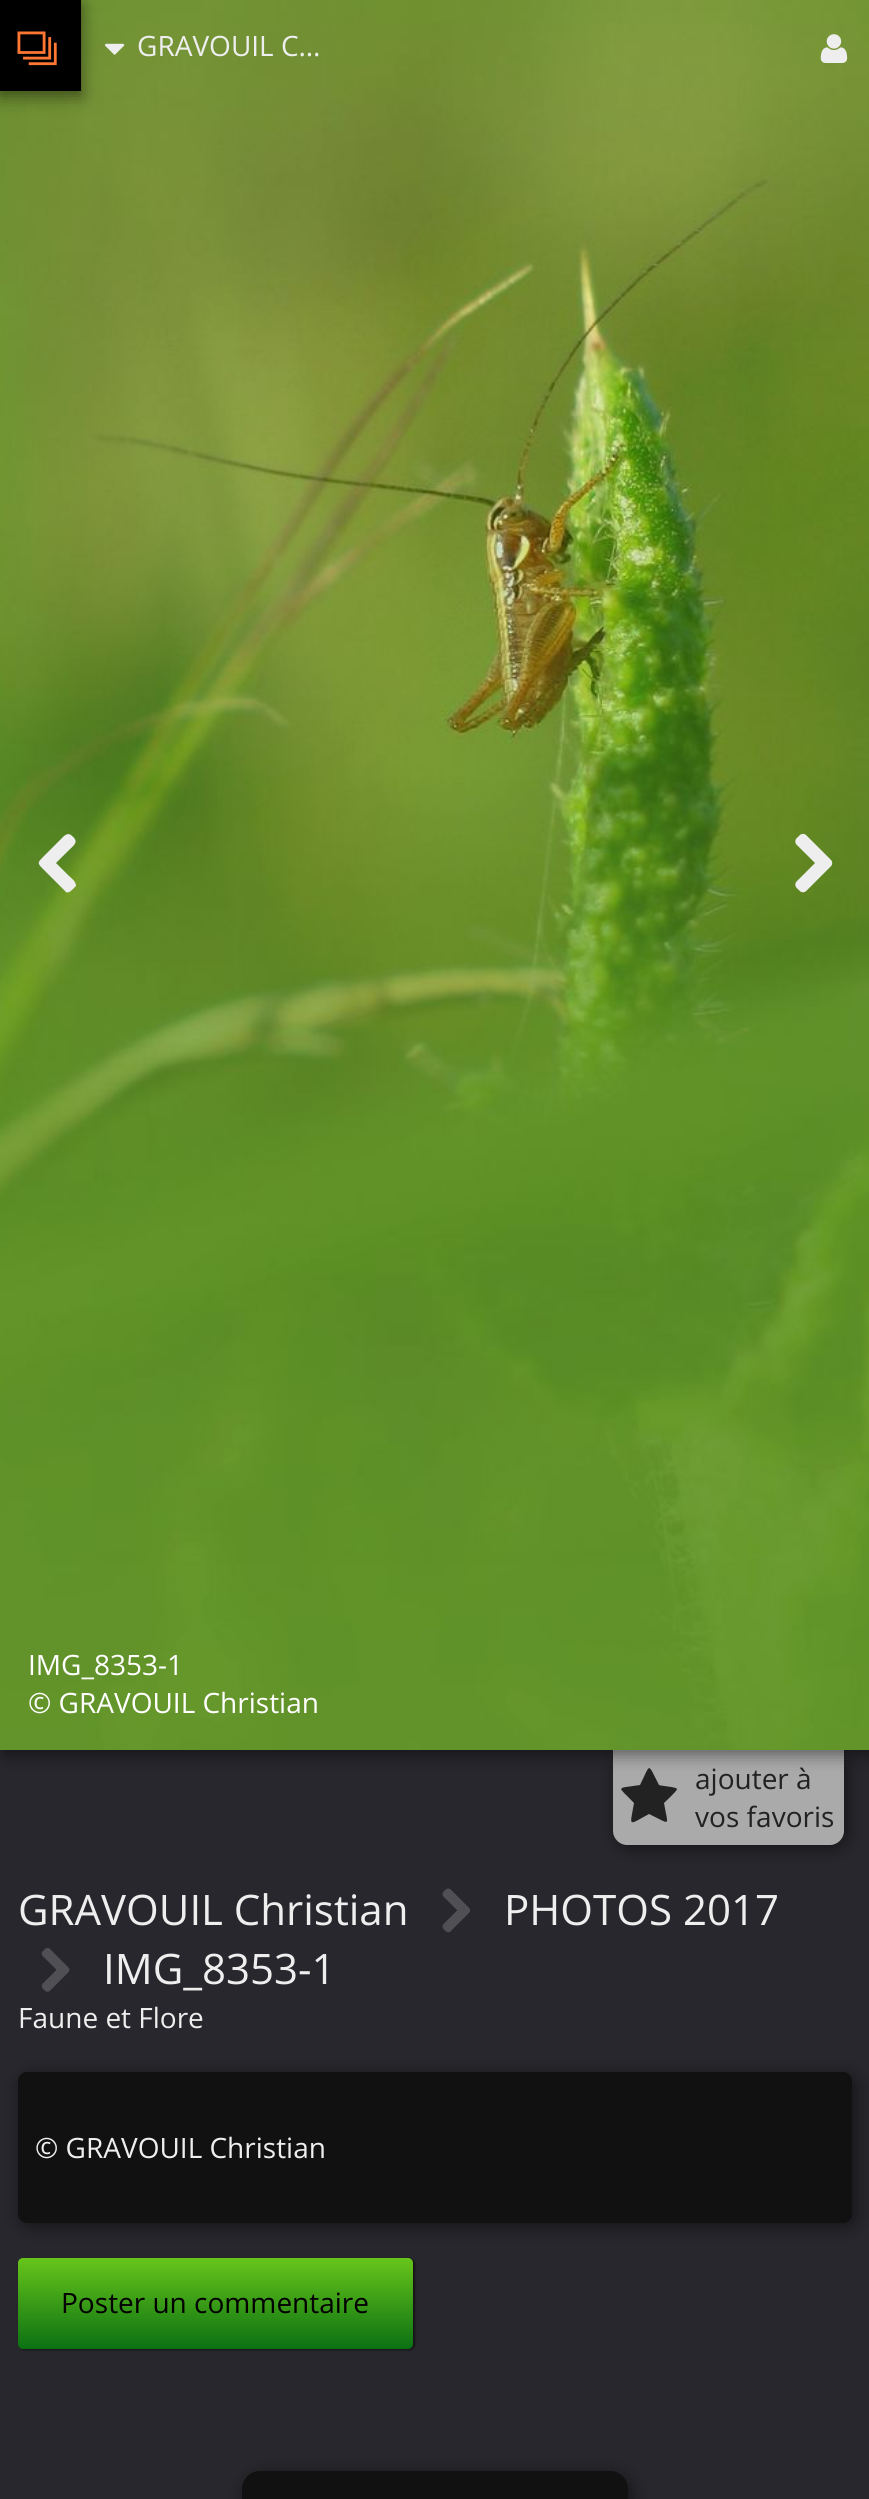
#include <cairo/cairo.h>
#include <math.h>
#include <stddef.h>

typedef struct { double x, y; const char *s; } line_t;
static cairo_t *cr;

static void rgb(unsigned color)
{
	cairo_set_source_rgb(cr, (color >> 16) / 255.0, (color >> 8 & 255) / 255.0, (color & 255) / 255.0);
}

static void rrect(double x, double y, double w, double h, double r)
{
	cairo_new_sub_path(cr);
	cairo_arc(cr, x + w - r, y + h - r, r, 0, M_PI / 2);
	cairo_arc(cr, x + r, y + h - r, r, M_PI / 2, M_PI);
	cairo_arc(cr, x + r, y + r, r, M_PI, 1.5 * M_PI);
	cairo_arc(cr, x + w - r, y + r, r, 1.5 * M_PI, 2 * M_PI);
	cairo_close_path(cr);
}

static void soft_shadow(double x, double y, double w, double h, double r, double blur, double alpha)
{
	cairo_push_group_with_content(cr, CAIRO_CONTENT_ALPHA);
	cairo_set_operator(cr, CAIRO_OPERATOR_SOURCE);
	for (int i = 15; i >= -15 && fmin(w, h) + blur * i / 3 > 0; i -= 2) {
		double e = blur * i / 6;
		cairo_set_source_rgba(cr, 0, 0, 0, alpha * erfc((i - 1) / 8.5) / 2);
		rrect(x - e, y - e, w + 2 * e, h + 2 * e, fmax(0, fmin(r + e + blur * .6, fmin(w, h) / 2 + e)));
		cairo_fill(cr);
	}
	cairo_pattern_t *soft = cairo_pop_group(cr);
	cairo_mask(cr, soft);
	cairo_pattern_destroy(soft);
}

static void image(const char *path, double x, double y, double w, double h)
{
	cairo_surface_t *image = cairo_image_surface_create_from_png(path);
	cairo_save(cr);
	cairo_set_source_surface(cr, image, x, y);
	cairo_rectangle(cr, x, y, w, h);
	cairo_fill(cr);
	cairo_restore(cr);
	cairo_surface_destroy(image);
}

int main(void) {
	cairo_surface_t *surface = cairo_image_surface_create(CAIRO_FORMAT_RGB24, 869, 2499);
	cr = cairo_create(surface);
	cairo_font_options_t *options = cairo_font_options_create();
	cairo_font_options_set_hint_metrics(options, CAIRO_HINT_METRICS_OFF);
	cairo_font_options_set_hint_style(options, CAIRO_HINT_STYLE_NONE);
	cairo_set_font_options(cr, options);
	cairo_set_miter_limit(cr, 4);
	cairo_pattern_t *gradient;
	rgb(0x28272d);
	cairo_paint(cr);
	rgb(0x000000);
	soft_shadow(616, 1754, 231, 94, 14, 9, 0.5);
	rgb(0xaaaaaa);
	cairo_new_path(cr);
	cairo_move_to(cr, 613, 1750);
	cairo_line_to(cr, 844, 1750);
	cairo_line_to(cr, 844, 1831);
	cairo_curve_to(cr, 844, 1838.5, 837.5, 1845, 830, 1845);
	cairo_line_to(cr, 627, 1845);
	cairo_curve_to(cr, 619.5, 1845, 613, 1838.5, 613, 1831);
	cairo_close_path(cr);
	cairo_fill(cr);
	rgb(0x222222);
	cairo_new_path(cr);
	cairo_move_to(cr, 677, 1789);
	cairo_curve_to(cr, 677, 1791, 666, 1801, 664, 1803);
	cairo_curve_to(cr, 668, 1827, 672, 1825, 649, 1814);
	cairo_curve_to(cr, 627, 1826, 630, 1827, 634, 1803);
	cairo_curve_to(cr, 617, 1785, 615, 1789, 640, 1785);
	cairo_curve_to(cr, 651, 1763, 647, 1762, 659, 1785);
	cairo_curve_to(cr, 661, 1786, 677, 1787, 677, 1789);
	cairo_close_path(cr);
	cairo_fill(cr);
	rgb(0x000000);
	soft_shadow(4, 4, 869, 1750, 0, 9, 0.5);
	image("img/4.png", 0, 0, 869, 1750);
	soft_shadow(0, 5, 81, 91, 0, 9, 0.5);
	rgb(0x000000);
	cairo_rectangle(cr, 0, 0, 81, 91);
	cairo_fill(cr);
	image("img/1.png", 17, 31, 40, 35);
	image("img/2.png", 105, 43, 20, 12);
	image("img/3.png", 820, 34, 28, 29);
	rgb(0xeeeeee);
	cairo_new_path(cr);
	cairo_move_to(cr, 65, 891);
	cairo_line_to(cr, 44, 870);
	cairo_curve_to(cr, 37, 863, 37, 863, 44, 856);
	cairo_line_to(cr, 61, 839);
	cairo_curve_to(cr, 63, 837, 67, 832, 71, 835);
	cairo_curve_to(cr, 80, 842, 74, 845, 68, 851);
	cairo_line_to(cr, 56, 863);
	cairo_line_to(cr, 68, 875);
	cairo_curve_to(cr, 71, 878, 76, 881, 76, 886);
	cairo_curve_to(cr, 75, 887, 74, 888, 73, 889);
	cairo_curve_to(cr, 70, 892, 67, 894, 65, 891);
	cairo_close_path(cr);
	cairo_fill(cr);
	image("img/5.png", 795, 833, 38, 60);
	image("img/6.png", 442, 1888, 28, 45);
	image("img/7.png", 41, 1948, 29, 44);
	rgb(0x000000);
	soft_shadow(21, 2076, 835, 150, 9, 9, 0.5);
	rgb(0x111111);
	rrect(18, 2072, 834, 151, 9);
	cairo_fill(cr);
	rgb(0x000000);
	soft_shadow(19, 2259, 396, 91, 5, 1, 0.5);
	gradient = cairo_pattern_create_linear(215, 2258, 215, 2349);
	cairo_pattern_add_color_stop_rgba(gradient, 0, 0.404, 0.773, 0.102, 1);
	cairo_pattern_add_color_stop_rgba(gradient, 1, 0.043, 0.443, 0.075, 1);
	cairo_set_source(cr, gradient);
	cairo_pattern_destroy(gradient);
	rrect(18, 2258, 395, 91, 5);
	cairo_fill(cr);
	rgb(0x000000);
	soft_shadow(245, 2475, 387, 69, 18, 9, 0.5);
	rgb(0x111111);
	rrect(242, 2471, 386, 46, 18);
	cairo_fill(cr);
	cairo_select_font_face(cr, "Open Sans", CAIRO_FONT_SLANT_NORMAL, CAIRO_FONT_WEIGHT_NORMAL);
	cairo_set_font_size(cr, 28);
	rgb(0xeeeeee);
	cairo_move_to(cr, 137, 56);
	cairo_show_text(cr, "GRAVOUIL C…");
	rgb(0xffffff);
	cairo_move_to(cr, 28, 1675);
	cairo_show_text(cr, "IMG_8353-1");
	cairo_move_to(cr, 28, 1713);
	cairo_show_text(cr, "© GRAVOUIL Christian");
	rgb(0x222222);
	cairo_move_to(cr, 695, 1789);
	cairo_show_text(cr, "ajouter à");
	cairo_move_to(cr, 695, 1827);
	cairo_show_text(cr, "vos favoris");
	cairo_set_font_size(cr, 42);
	rgb(0xeeeeee);
	{
		static const line_t items[] = {
			{18, 1925, "GRAVOUIL Christian"},
			{504, 1925, "PHOTOS 2017"},
			{103, 1984, "IMG_8353-1"},
		};
		for (size_t i = 0; i < sizeof items / sizeof *items; i++) {
			cairo_move_to(cr, items[i].x, items[i].y);
			cairo_show_text(cr, items[i].s);
		}
	}
	cairo_set_font_size(cr, 28);
	cairo_move_to(cr, 18, 2028);
	cairo_show_text(cr, "Faune et Flore");
	cairo_move_to(cr, 35, 2158);
	cairo_show_text(cr, "© GRAVOUIL Christian");
	rgb(0x000000);
	cairo_move_to(cr, 61, 2313);
	cairo_show_text(cr, "Poster un commentaire");
	cairo_surface_write_to_png(surface, "page.png");
	cairo_font_options_destroy(options);
	cairo_destroy(cr);
	cairo_surface_destroy(surface);
	return 0;
}
